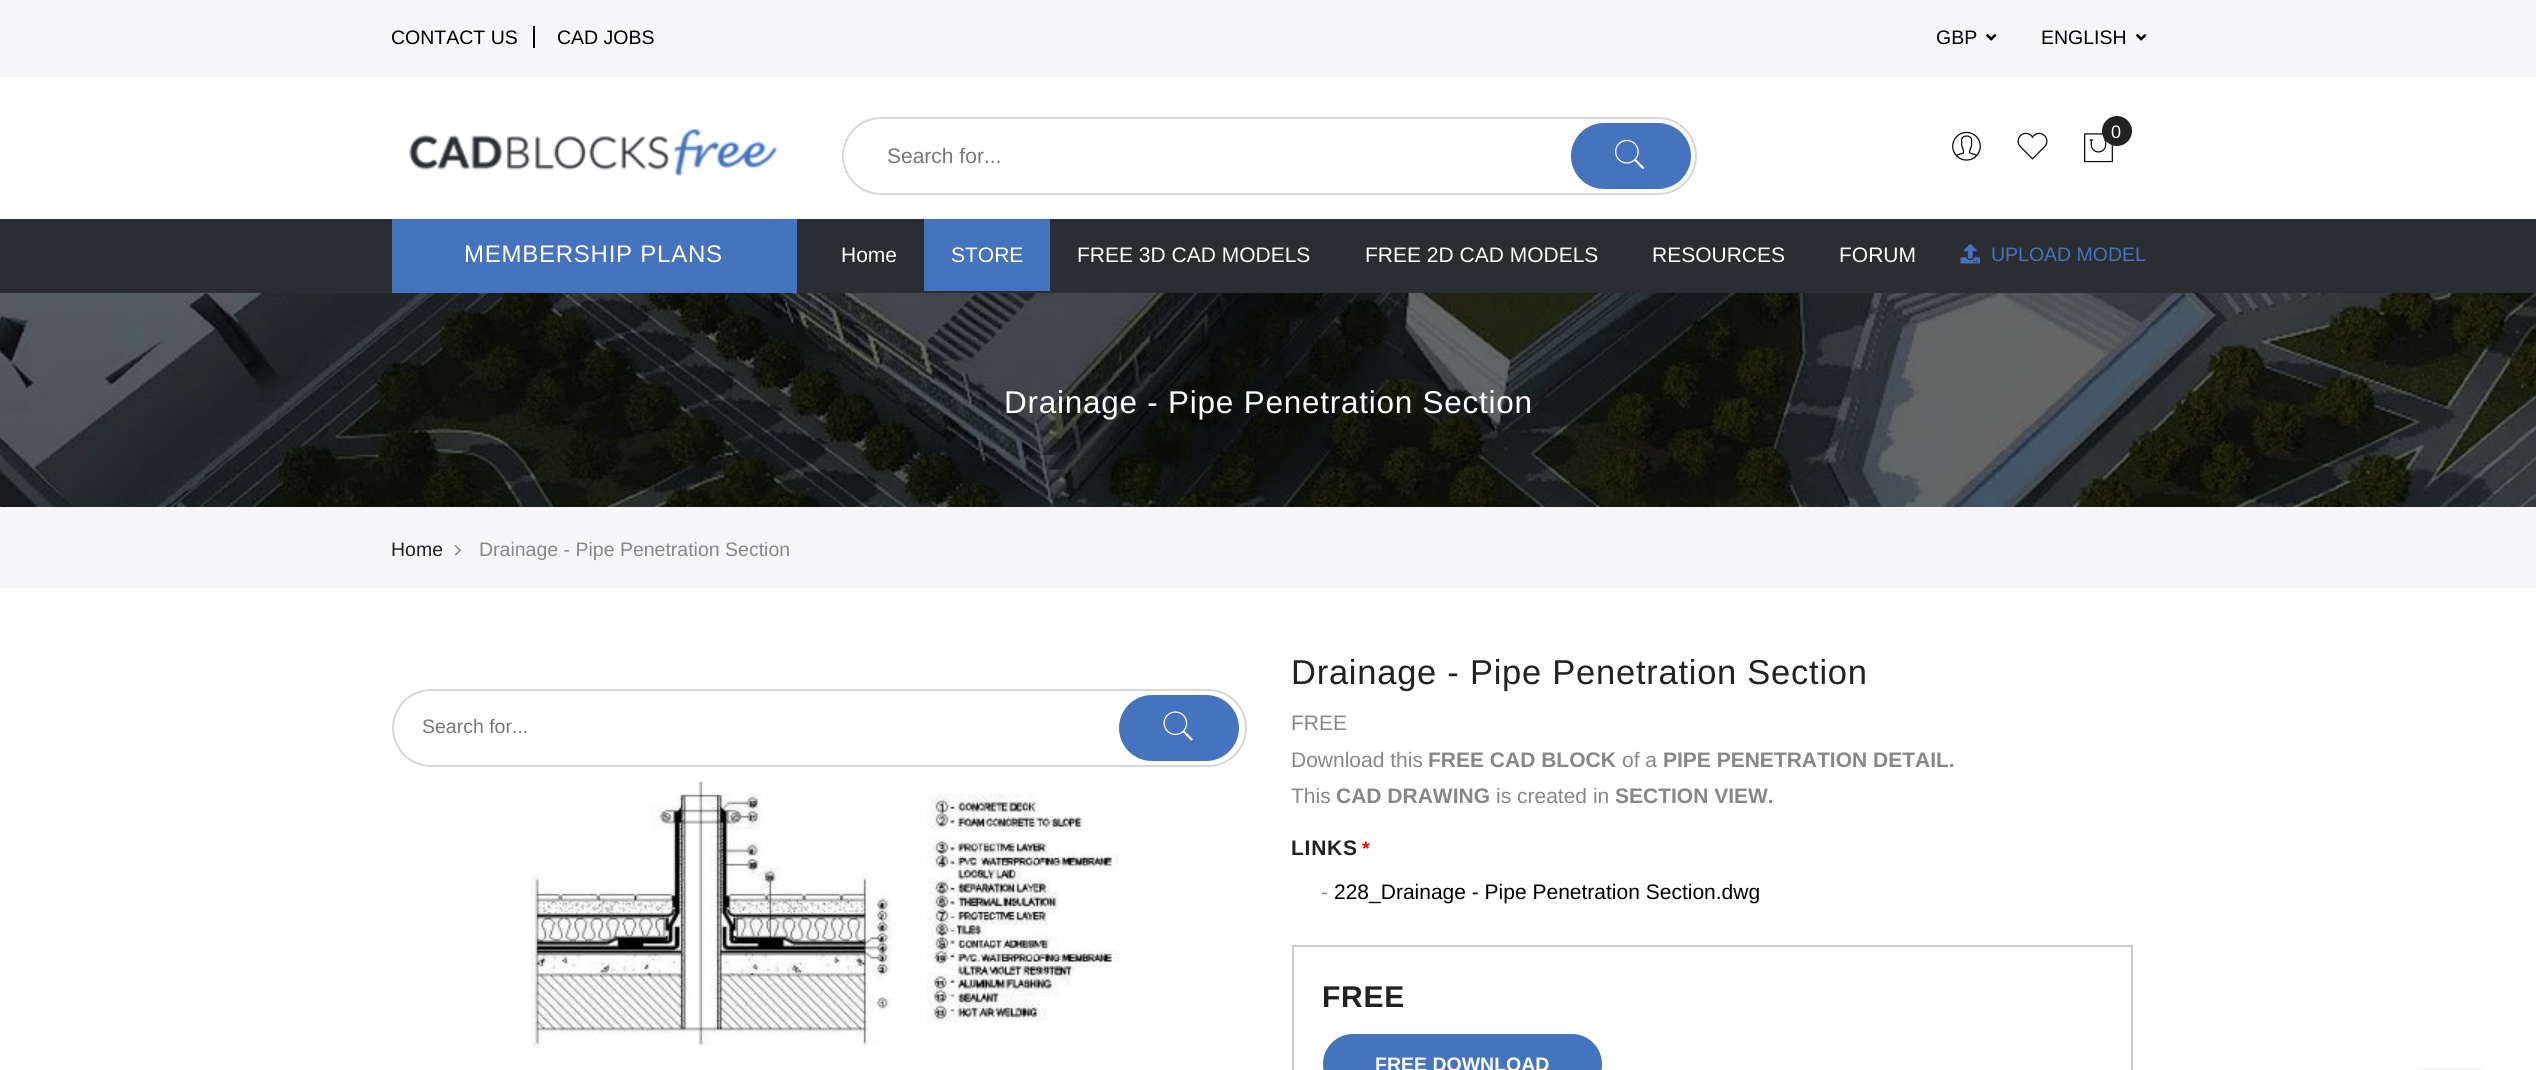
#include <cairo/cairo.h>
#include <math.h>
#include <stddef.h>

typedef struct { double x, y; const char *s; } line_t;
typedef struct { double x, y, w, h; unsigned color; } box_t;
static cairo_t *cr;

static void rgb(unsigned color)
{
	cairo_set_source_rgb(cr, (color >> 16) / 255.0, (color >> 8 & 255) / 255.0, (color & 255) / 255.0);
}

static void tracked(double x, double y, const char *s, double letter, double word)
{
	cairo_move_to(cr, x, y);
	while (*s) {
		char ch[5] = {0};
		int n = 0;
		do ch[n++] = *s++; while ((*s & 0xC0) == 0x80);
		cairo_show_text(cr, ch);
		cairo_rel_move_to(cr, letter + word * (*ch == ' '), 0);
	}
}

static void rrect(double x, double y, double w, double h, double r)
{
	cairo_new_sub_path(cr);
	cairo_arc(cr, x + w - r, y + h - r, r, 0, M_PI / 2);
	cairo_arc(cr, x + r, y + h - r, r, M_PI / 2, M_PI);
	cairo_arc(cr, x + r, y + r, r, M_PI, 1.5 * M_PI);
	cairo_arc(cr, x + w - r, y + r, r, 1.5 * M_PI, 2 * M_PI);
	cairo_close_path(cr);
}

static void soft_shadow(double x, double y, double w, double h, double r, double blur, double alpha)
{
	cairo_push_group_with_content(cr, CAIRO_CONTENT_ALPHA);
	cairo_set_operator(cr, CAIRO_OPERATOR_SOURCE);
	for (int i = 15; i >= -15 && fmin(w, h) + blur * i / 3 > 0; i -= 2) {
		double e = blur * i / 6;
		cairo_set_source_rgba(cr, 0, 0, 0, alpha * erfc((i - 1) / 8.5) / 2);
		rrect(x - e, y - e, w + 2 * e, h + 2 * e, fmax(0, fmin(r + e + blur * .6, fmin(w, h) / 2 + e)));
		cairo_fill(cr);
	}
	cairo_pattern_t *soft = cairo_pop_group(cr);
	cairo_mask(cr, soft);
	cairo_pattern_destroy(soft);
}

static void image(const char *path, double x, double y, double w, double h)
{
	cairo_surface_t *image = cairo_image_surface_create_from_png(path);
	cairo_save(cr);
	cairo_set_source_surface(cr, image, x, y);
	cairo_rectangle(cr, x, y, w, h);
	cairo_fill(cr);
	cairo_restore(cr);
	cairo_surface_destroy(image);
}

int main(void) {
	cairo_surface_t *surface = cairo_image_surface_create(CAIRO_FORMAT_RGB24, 2536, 1070);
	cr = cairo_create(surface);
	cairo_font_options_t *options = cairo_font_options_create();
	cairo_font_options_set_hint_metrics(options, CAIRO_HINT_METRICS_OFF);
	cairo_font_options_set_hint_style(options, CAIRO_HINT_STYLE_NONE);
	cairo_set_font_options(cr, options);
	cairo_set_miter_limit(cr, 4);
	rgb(0xffffff);
	cairo_paint(cr);
	rgb(0xf6f6f8);
	cairo_rectangle(cr, 0, 0, 2536, 77);
	cairo_fill(cr);
	rgb(0x000000);
	cairo_rectangle(cr, 533, 26, 2, 22);
	cairo_fill(cr);
	image("img/1.png", 1986, 34, 11, 7);
	image("img/1.png", 2136, 34, 11, 7);
	image("img/2.png", 409, 129, 368, 47);
	rrect(843, 118, 853, 76, 38);
	rgb(0xd7d7d7);
	cairo_stroke(cr);
	rgb(0x4573be);
	rrect(1571, 123, 120, 66, 33);
	cairo_fill(cr);
	image("img/3.png", 1615, 139, 30, 31);
	image("img/4.png", 1952, 131, 29, 30);
	image("img/5.png", 2017, 132, 31, 28);
	image("img/6.png", 2084, 133, 29, 30);
	rgb(0x222222);
	cairo_arc(cr, 2117, 131, 15, 0, 2 * M_PI);
	cairo_fill(cr);
	{
		static const box_t items[] = {
			{0, 219, 2536, 74, 0x2a2d32},
			{392, 219, 405, 74, 0x4573be},
			{924, 219, 126, 72, 0x4573be},
		};
		for (size_t i = 0; i < sizeof items / sizeof *items; i++) {
			rgb(items[i].color);
			cairo_rectangle(cr, items[i].x, items[i].y, items[i].w, items[i].h);
			cairo_fill(cr);
		}
	}
	image("img/7.png", 1960, 244, 20, 20);
	image("img/8.png", 0, 293, 2536, 214);
	rgb(0xf6f6f8);
	cairo_rectangle(cr, 0, 507, 2536, 81);
	cairo_fill(cr);
	image("img/9.png", 454, 544, 7, 12);
	rrect(393, 690, 853, 76, 38);
	rgb(0xd7d7d7);
	cairo_stroke(cr);
	rgb(0x4573be);
	rrect(1119, 695, 120, 66, 33);
	cairo_fill(cr);
	image("img/10.png", 1163, 711, 30, 30);
	image("img/11.png", 531, 781, 588, 267);
	cairo_rectangle(cr, 1293, 946, 839, 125);
	rgb(0xcccccc);
	cairo_stroke(cr);
	rgb(0x4573be);
	rrect(1324, 1035, 277, 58, 29);
	cairo_fill_preserve(cr);
	cairo_stroke(cr);
	rgb(0x000000);
	soft_shadow(2417, 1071, 67, 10, 5, 2, 0.2);
	cairo_select_font_face(cr, "Liberation Sans", CAIRO_FONT_SLANT_NORMAL, CAIRO_FONT_WEIGHT_NORMAL);
	cairo_set_font_size(cr, 19.5);
	rgb(0x000000);
	{
		static const line_t items[] = {
			{391, 44, "CONTACT US"},
			{557, 44, "CAD JOBS"},
			{1936, 44, "GBP"},
			{2041, 44, "ENGLISH"},
		};
		for (size_t i = 0; i < sizeof items / sizeof *items; i++) {
			cairo_move_to(cr, items[i].x, items[i].y);
			cairo_show_text(cr, items[i].s);
		}
	}
	cairo_set_font_size(cr, 21);
	rgb(0x777777);
	cairo_move_to(cr, 887, 163);
	cairo_show_text(cr, "Search for...");
	cairo_set_font_size(cr, 18);
	rgb(0xffffff);
	cairo_move_to(cr, 2111, 138);
	cairo_show_text(cr, "0");
	cairo_set_font_size(cr, 24);
	tracked(464, 262, "MEMBERSHIP PLANS", 0.75, 0);
	cairo_set_font_size(cr, 21);
	{
		static const line_t items[] = {
			{841, 262, "Home"},
			{951, 262, "STORE"},
			{1077, 262, "FREE 3D CAD MODELS"},
			{1365, 262, "FREE 2D CAD MODELS"},
			{1652, 262, "RESOURCES"},
			{1839, 262, "FORUM"},
		};
		for (size_t i = 0; i < sizeof items / sizeof *items; i++) {
			cairo_move_to(cr, items[i].x, items[i].y);
			cairo_show_text(cr, items[i].s);
		}
	}
	cairo_set_font_size(cr, 19.5);
	rgb(0x4573be);
	cairo_move_to(cr, 1991, 261);
	cairo_show_text(cr, "UPLOAD MODEL");
	cairo_set_font_size(cr, 31.5);
	rgb(0xffffff);
	tracked(1004, 413, "Drainage - Pipe Penetration Section", 0.75, 0);
	cairo_set_font_size(cr, 19.5);
	rgb(0x222222);
	cairo_move_to(cr, 391, 556);
	cairo_show_text(cr, "Home");
	rgb(0x878787);
	cairo_move_to(cr, 479, 556);
	cairo_show_text(cr, "Drainage - Pipe Penetration Section");
	rgb(0x777777);
	cairo_move_to(cr, 422, 733);
	cairo_show_text(cr, "Search for...");
	cairo_set_font_size(cr, 34.5);
	rgb(0x222222);
	tracked(1291, 684, "Drainage - Pipe Penetration Section", 0.75, 0);
	cairo_set_font_size(cr, 21);
	rgb(0x878787);
	cairo_move_to(cr, 1291, 730);
	cairo_show_text(cr, "FREE");
	cairo_move_to(cr, 1291, 767);
	cairo_show_text(cr, "Download this");
	cairo_select_font_face(cr, "Liberation Sans", CAIRO_FONT_SLANT_NORMAL, CAIRO_FONT_WEIGHT_BOLD);
	cairo_move_to(cr, 1428, 767);
	cairo_show_text(cr, "FREE CAD BLOCK");
	cairo_select_font_face(cr, "Liberation Sans", CAIRO_FONT_SLANT_NORMAL, CAIRO_FONT_WEIGHT_NORMAL);
	cairo_move_to(cr, 1622, 767);
	cairo_show_text(cr, "of a");
	cairo_select_font_face(cr, "Liberation Sans", CAIRO_FONT_SLANT_NORMAL, CAIRO_FONT_WEIGHT_BOLD);
	cairo_move_to(cr, 1663, 767);
	cairo_show_text(cr, "PIPE PENETRATION DETAIL.");
	cairo_select_font_face(cr, "Liberation Sans", CAIRO_FONT_SLANT_NORMAL, CAIRO_FONT_WEIGHT_NORMAL);
	cairo_move_to(cr, 1291, 803);
	cairo_show_text(cr, "This");
	cairo_select_font_face(cr, "Liberation Sans", CAIRO_FONT_SLANT_NORMAL, CAIRO_FONT_WEIGHT_BOLD);
	cairo_move_to(cr, 1336, 803);
	cairo_show_text(cr, "CAD DRAWING");
	cairo_select_font_face(cr, "Liberation Sans", CAIRO_FONT_SLANT_NORMAL, CAIRO_FONT_WEIGHT_NORMAL);
	cairo_move_to(cr, 1496, 803);
	cairo_show_text(cr, "is created in");
	cairo_select_font_face(cr, "Liberation Sans", CAIRO_FONT_SLANT_NORMAL, CAIRO_FONT_WEIGHT_BOLD);
	cairo_move_to(cr, 1615, 803);
	cairo_show_text(cr, "SECTION VIEW.");
	rgb(0x222222);
	tracked(1291, 855, "LINKS", 0.75, 0);
	cairo_set_font_size(cr, 19.5);
	rgb(0xff0000);
	tracked(1362, 855, "*", 0.75, 0);
	cairo_select_font_face(cr, "Liberation Sans", CAIRO_FONT_SLANT_NORMAL, CAIRO_FONT_WEIGHT_NORMAL);
	cairo_set_font_size(cr, 21);
	rgb(0x878787);
	cairo_move_to(cr, 1321, 899);
	cairo_show_text(cr, "-");
	rgb(0x000000);
	cairo_move_to(cr, 1334, 899);
	cairo_show_text(cr, "228_Drainage - Pipe Penetration Section.dwg");
	cairo_select_font_face(cr, "Liberation Sans", CAIRO_FONT_SLANT_NORMAL, CAIRO_FONT_WEIGHT_BOLD);
	cairo_set_font_size(cr, 30);
	rgb(0x222222);
	tracked(1322, 1007, "FREE", 0.75, 0);
	cairo_set_font_size(cr, 19.5);
	rgb(0xffffff);
	cairo_move_to(cr, 1375, 1071);
	cairo_show_text(cr, "FREE DOWNLOAD");
	cairo_surface_write_to_png(surface, "page.png");
	cairo_font_options_destroy(options);
	cairo_destroy(cr);
	cairo_surface_destroy(surface);
	return 0;
}
